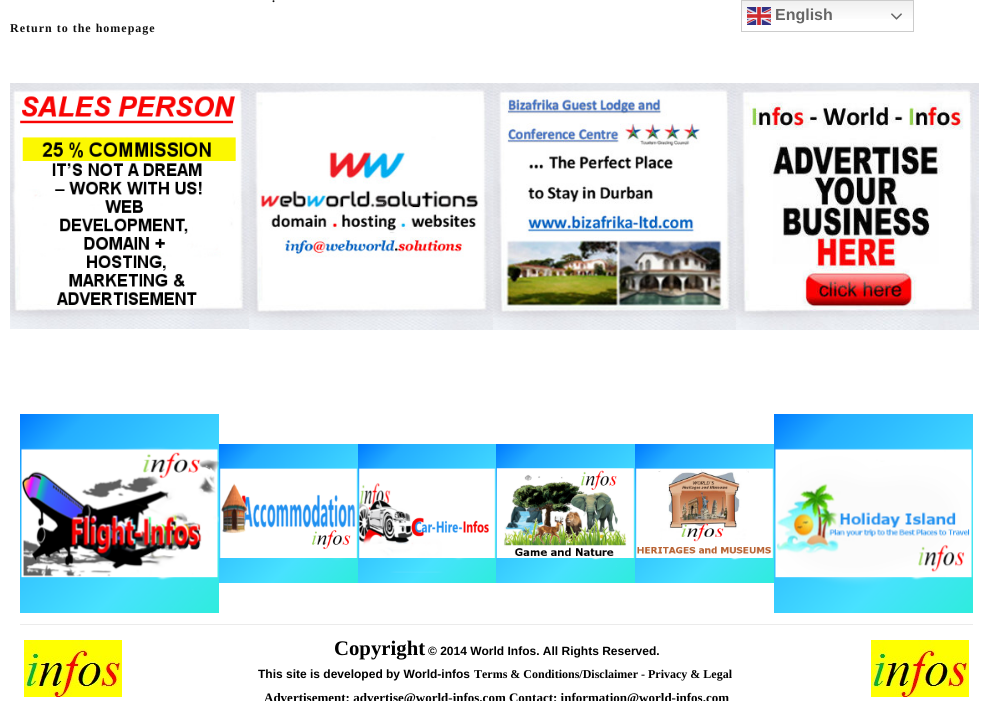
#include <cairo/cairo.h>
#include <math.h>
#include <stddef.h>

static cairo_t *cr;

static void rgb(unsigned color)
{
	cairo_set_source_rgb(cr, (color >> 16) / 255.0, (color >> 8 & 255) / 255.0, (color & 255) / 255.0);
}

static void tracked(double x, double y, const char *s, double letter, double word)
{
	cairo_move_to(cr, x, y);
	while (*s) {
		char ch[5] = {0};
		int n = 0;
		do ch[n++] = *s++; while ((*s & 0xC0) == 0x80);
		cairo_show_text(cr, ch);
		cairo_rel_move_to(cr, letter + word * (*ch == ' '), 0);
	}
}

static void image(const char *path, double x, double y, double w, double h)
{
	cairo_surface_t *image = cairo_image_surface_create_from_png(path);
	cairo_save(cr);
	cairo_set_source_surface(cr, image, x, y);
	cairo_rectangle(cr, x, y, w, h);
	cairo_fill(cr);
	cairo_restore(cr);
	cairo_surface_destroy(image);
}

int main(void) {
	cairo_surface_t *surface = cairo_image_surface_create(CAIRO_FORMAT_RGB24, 993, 701);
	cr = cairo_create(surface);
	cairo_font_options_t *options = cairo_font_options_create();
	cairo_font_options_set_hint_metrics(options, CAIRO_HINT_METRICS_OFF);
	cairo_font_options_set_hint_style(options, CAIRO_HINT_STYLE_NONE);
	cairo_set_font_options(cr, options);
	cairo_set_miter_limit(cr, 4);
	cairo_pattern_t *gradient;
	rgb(0xffffff);
	cairo_paint(cr);
	gradient = cairo_pattern_create_linear(828, 0, 828, 32);
	cairo_pattern_add_color_stop_rgba(gradient, 0, 0.937, 0.937, 0.937, 1);
	cairo_pattern_add_color_stop_rgba(gradient, 0.7, 1, 1, 1, 1);
	cairo_set_source(cr, gradient);
	cairo_pattern_destroy(gradient);
	cairo_rectangle(cr, 742, 1, 171, 18);
	cairo_fill(cr);
	cairo_rectangle(cr, 741.5, 0.5, 172, 31);
	rgb(0xcccccc);
	cairo_set_line_width(cr, 1);
	cairo_stroke(cr);
	image("img/1.png", 747, 7, 24, 18);
	image("img/2.png", 891, 13, 11, 7);
	image("img/3.png", 10, 83, 239, 246);
	image("img/4.png", 249, 83, 244, 247);
	image("img/5.png", 493, 83, 243, 247);
	image("img/6.png", 736, 83, 243, 247);
	rgb(0xebebeb);
	cairo_rectangle(cr, 20, 624, 953, 1);
	cairo_fill(cr);
	image("img/7.png", 20, 414, 199, 199);
	image("img/8.png", 219, 444, 139, 139);
	image("img/9.png", 358, 444, 138, 139);
	image("img/10.png", 496, 444, 139, 139);
	image("img/11.png", 635, 444, 139, 139);
	image("img/12.png", 774, 414, 199, 199);
	image("img/13.png", 24, 640, 98, 57);
	image("img/13.png", 871, 640, 98, 57);
	cairo_select_font_face(cr, "Liberation Serif", CAIRO_FONT_SLANT_NORMAL, CAIRO_FONT_WEIGHT_BOLD);
	cairo_set_font_size(cr, 12);
	rgb(0x111111);
	tracked(272, 2, ".", 1, 0);
	tracked(10, 32, "Return to the homepage", 1, 0);
	cairo_select_font_face(cr, "Liberation Sans", CAIRO_FONT_SLANT_NORMAL, CAIRO_FONT_WEIGHT_BOLD);
	cairo_set_font_size(cr, 16);
	rgb(0x666666);
	cairo_move_to(cr, 775, 20);
	cairo_show_text(cr, "English");
	cairo_select_font_face(cr, "Liberation Serif", CAIRO_FONT_SLANT_NORMAL, CAIRO_FONT_WEIGHT_BOLD);
	cairo_set_font_size(cr, 20.75);
	rgb(0x000000);
	cairo_move_to(cr, 334, 655);
	cairo_show_text(cr, "Copyright");
	cairo_select_font_face(cr, "Liberation Sans", CAIRO_FONT_SLANT_NORMAL, CAIRO_FONT_WEIGHT_BOLD);
	cairo_set_font_size(cr, 12);
	cairo_move_to(cr, 428, 655);
	cairo_show_text(cr, "© 2014 World Infos. All Rights Reserved.");
	cairo_move_to(cr, 258, 678);
	cairo_show_text(cr, "This site is developed by World-infos");
	cairo_select_font_face(cr, "Liberation Serif", CAIRO_FONT_SLANT_NORMAL, CAIRO_FONT_WEIGHT_BOLD);
	cairo_move_to(cr, 474, 678);
	cairo_show_text(cr, "Terms & Conditions/Disclaimer - Privacy & Legal");
	cairo_set_font_size(cr, 13);
	cairo_move_to(cr, 264, 702);
	cairo_show_text(cr, "Advertisement: advertise@world-infos.com Contact: information@world-infos.com");
	cairo_surface_write_to_png(surface, "page.png");
	cairo_font_options_destroy(options);
	cairo_destroy(cr);
	cairo_surface_destroy(surface);
	return 0;
}
